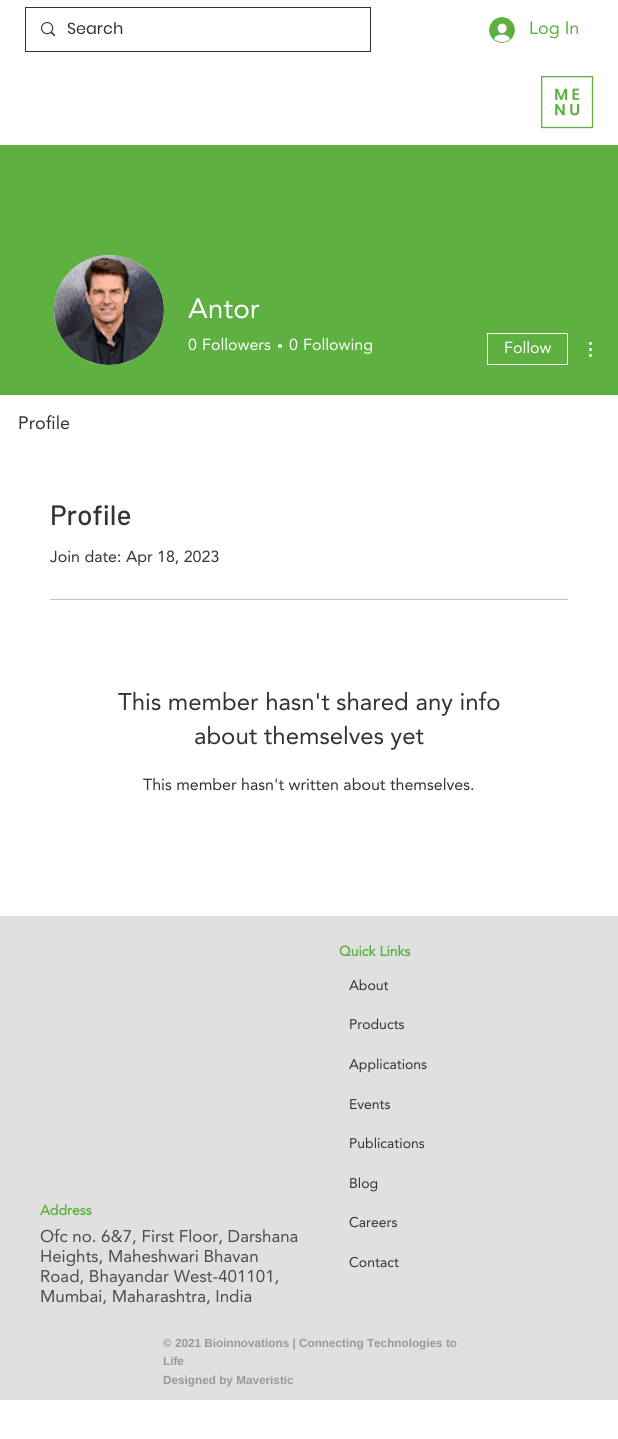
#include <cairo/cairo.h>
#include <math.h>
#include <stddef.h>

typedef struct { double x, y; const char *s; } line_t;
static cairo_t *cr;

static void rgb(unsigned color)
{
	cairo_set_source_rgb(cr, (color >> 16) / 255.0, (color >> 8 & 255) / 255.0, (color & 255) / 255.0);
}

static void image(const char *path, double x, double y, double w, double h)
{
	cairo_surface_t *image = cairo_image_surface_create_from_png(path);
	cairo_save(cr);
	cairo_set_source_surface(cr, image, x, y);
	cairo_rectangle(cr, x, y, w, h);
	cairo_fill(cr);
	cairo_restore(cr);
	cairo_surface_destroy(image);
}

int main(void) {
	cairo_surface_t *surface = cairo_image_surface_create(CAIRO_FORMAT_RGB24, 618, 1439);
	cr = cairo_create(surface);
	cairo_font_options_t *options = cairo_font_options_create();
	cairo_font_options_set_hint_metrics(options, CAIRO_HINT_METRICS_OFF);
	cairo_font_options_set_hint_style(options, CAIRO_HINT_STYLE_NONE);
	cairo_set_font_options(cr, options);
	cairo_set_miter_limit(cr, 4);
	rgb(0xffffff);
	cairo_paint(cr);
	cairo_rectangle(cr, 25.5, 7.5, 345, 44);
	rgb(0x333333);
	cairo_set_line_width(cr, 1);
	cairo_stroke(cr);
	image("img/1.png", 41, 22, 14, 15);
	image("img/2.png", 489, 17, 26, 26);
	image("img/3.png", 541, 76, 53, 53);
	rgb(0x5eb140);
	cairo_rectangle(cr, 0, 145, 618, 250);
	cairo_fill(cr);
	rgb(0xd8d8d8);
	cairo_arc(cr, 109, 310, 55, 0, 2 * M_PI);
	cairo_fill(cr);
	image("img/4.png", 54, 255, 110, 110);
	rgb(0xfefefe);
	cairo_arc(cr, 280, 346, 2, 0, 2 * M_PI);
	cairo_fill(cr);
	cairo_rectangle(cr, 487.5, 333.5, 80, 31);
	cairo_stroke(cr);
	image("img/5.png", 589, 342, 3, 15);
	rgb(0xc2c2c2);
	cairo_rectangle(cr, 50, 599, 518, 1);
	cairo_fill(cr);
	rgb(0xe0e0e0);
	cairo_rectangle(cr, 0, 916, 618, 484);
	cairo_fill(cr);
	cairo_select_font_face(cr, "Poppins", CAIRO_FONT_SLANT_NORMAL, CAIRO_FONT_WEIGHT_NORMAL);
	cairo_set_font_size(cr, 16);
	rgb(0x333333);
	cairo_move_to(cr, 67, 34);
	cairo_show_text(cr, "Search");
	cairo_select_font_face(cr, "Avenir", CAIRO_FONT_SLANT_NORMAL, CAIRO_FONT_WEIGHT_NORMAL);
	cairo_set_font_size(cr, 18);
	rgb(0x5eb140);
	cairo_move_to(cr, 529, 34);
	cairo_show_text(cr, "Log In");
	cairo_set_font_size(cr, 28);
	rgb(0xfefefe);
	cairo_move_to(cr, 188, 318);
	cairo_show_text(cr, "Antor");
	cairo_set_font_size(cr, 16);
	{
		static const line_t items[] = {
			{188, 350, "0"},
			{202, 350, "Followers"},
			{289, 350, "0"},
			{303, 350, "Following"},
			{504, 353, "Follow"},
		};
		for (size_t i = 0; i < sizeof items / sizeof *items; i++) {
			cairo_move_to(cr, items[i].x, items[i].y);
			cairo_show_text(cr, items[i].s);
		}
	}
	cairo_set_font_size(cr, 18);
	rgb(0x333333);
	cairo_move_to(cr, 18, 429);
	cairo_show_text(cr, "Profile");
	cairo_select_font_face(cr, "Barlow Medium", CAIRO_FONT_SLANT_NORMAL, CAIRO_FONT_WEIGHT_NORMAL);
	cairo_set_font_size(cr, 28);
	cairo_move_to(cr, 50, 525);
	cairo_show_text(cr, "Profile");
	cairo_select_font_face(cr, "Avenir", CAIRO_FONT_SLANT_NORMAL, CAIRO_FONT_WEIGHT_NORMAL);
	cairo_set_font_size(cr, 16);
	cairo_move_to(cr, 50, 562);
	cairo_show_text(cr, "Join date: Apr 18, 2023");
	cairo_set_font_size(cr, 24);
	cairo_move_to(cr, 118, 710);
	cairo_show_text(cr, "This member hasn't shared any info");
	cairo_move_to(cr, 194, 744);
	cairo_show_text(cr, "about themselves yet");
	cairo_set_font_size(cr, 16);
	cairo_move_to(cr, 143, 790);
	cairo_show_text(cr, "This member hasn't written about themselves.");
	cairo_select_font_face(cr, "Avenir", CAIRO_FONT_SLANT_NORMAL, CAIRO_FONT_WEIGHT_BOLD);
	cairo_set_font_size(cr, 14);
	rgb(0x5eb140);
	cairo_move_to(cr, 339, 956);
	cairo_show_text(cr, "Quick Links");
	cairo_move_to(cr, 40, 1215);
	cairo_show_text(cr, "Address");
	cairo_select_font_face(cr, "Avenir", CAIRO_FONT_SLANT_NORMAL, CAIRO_FONT_WEIGHT_NORMAL);
	rgb(0x333333);
	{
		static const line_t items[] = {
			{349, 990, "About"},
			{349, 1029, "Products"},
			{349, 1069, "Applications"},
			{349, 1109, "Events"},
			{349, 1148, "Publications"},
			{349, 1188, "Blog"},
			{349, 1227, "Careers"},
			{349, 1267, "Contact"},
		};
		for (size_t i = 0; i < sizeof items / sizeof *items; i++) {
			cairo_move_to(cr, items[i].x, items[i].y);
			cairo_show_text(cr, items[i].s);
		}
	}
	cairo_set_font_size(cr, 16.9);
	rgb(0x4c4c4b);
	{
		static const line_t items[] = {
			{40, 1242, "Ofc no. 6&7, First Floor, Darshana"},
			{40, 1262, "Heights, Maheshwari Bhavan"},
			{40, 1282, "Road, Bhayandar West-401101,"},
			{40, 1302, "Mumbai, Maharashtra, India"},
		};
		for (size_t i = 0; i < sizeof items / sizeof *items; i++) {
			cairo_move_to(cr, items[i].x, items[i].y);
			cairo_show_text(cr, items[i].s);
		}
	}
	cairo_select_font_face(cr, "Liberation Sans", CAIRO_FONT_SLANT_NORMAL, CAIRO_FONT_WEIGHT_BOLD);
	cairo_set_font_size(cr, 11.75);
	rgb(0x989898);
	{
		static const line_t items[] = {
			{163, 1347, "© 2021 Bioinnovations | Connecting Technologies to"},
			{163, 1365, "Life"},
			{163, 1384, "Designed by Maveristic"},
		};
		for (size_t i = 0; i < sizeof items / sizeof *items; i++) {
			cairo_move_to(cr, items[i].x, items[i].y);
			cairo_show_text(cr, items[i].s);
		}
	}
	cairo_surface_write_to_png(surface, "page.png");
	cairo_font_options_destroy(options);
	cairo_destroy(cr);
	cairo_surface_destroy(surface);
	return 0;
}
